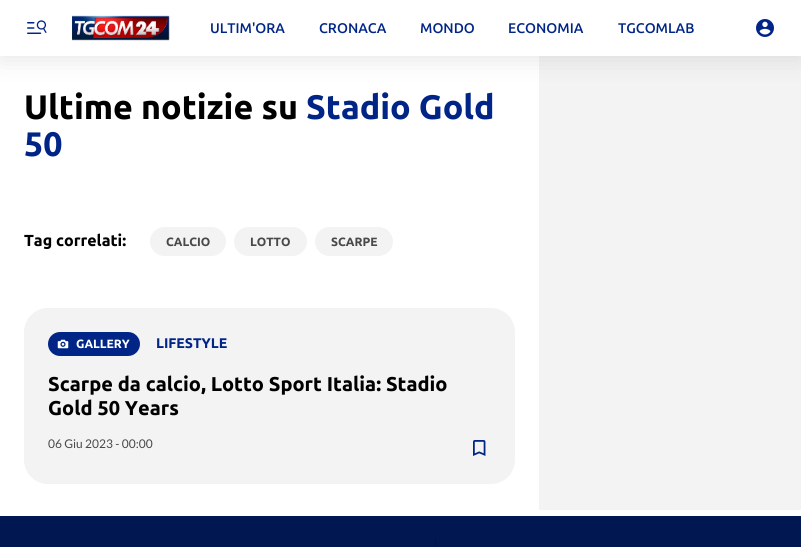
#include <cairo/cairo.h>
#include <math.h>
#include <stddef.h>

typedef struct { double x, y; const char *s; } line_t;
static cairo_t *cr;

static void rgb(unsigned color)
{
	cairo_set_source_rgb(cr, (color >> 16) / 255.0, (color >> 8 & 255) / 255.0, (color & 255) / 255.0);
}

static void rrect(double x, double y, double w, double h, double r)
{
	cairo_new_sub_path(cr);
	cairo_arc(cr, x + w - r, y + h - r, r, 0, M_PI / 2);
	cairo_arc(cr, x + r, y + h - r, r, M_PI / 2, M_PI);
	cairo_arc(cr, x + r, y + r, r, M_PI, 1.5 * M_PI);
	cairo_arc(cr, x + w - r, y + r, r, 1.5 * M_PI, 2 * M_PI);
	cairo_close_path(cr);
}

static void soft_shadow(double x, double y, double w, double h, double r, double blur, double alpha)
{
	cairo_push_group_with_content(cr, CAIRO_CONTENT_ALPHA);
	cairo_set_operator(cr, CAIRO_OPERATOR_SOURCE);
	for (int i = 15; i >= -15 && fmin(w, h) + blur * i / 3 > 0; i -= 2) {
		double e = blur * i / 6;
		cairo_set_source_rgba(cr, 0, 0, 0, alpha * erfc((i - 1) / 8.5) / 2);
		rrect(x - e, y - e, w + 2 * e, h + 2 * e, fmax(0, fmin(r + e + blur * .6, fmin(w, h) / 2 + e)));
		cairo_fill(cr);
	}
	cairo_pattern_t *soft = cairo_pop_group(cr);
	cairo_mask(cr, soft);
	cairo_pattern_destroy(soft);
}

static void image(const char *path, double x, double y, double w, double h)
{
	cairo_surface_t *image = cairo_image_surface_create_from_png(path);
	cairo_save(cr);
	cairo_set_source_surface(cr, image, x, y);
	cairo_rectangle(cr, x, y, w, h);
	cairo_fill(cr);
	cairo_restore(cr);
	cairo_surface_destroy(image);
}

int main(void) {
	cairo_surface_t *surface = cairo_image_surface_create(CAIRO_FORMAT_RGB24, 801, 547);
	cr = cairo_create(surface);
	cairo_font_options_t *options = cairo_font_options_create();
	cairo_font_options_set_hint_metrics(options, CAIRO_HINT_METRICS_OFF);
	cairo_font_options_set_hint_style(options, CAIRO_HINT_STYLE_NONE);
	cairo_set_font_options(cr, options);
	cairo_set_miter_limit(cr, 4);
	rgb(0xffffff);
	cairo_paint(cr);
	rgb(0xf3f3f3);
	cairo_rectangle(cr, 539, 56, 262, 454);
	cairo_fill(cr);
	rgb(0x333333);
	soft_shadow(0, 4, 801, 56, 0, 12, 0.12);
	rgb(0xffffff);
	cairo_rectangle(cr, 0, 0, 801, 56);
	cairo_fill(cr);
	image("img/1.png", 27, 20, 20, 14);
	image("img/2.png", 72, 15, 98, 26);
	image("img/3.png", 756, 19, 18, 18);
	rgb(0xf3f3f3);
	rrect(150, 227, 76, 29, 14.5);
	cairo_fill(cr);
	rrect(234, 227, 73, 29, 14.5);
	cairo_fill(cr);
	rrect(315, 227, 78, 29, 14.5);
	cairo_fill(cr);
	rrect(24, 308, 491, 176, 24);
	cairo_fill(cr);
	rgb(0x002586);
	rrect(48, 332, 92, 24, 12);
	cairo_fill(cr);
	image("img/4.png", 57, 339, 12, 10);
	image("img/5.png", 473, 440, 13, 16);
	rgb(0x001752);
	cairo_rectangle(cr, 0, 516, 801, 31);
	cairo_fill(cr);
	rgb(0x00113e);
	cairo_rectangle(cr, 435, 540, 1, 7);
	cairo_fill(cr);
	cairo_select_font_face(cr, "Ubuntu SemiBold", CAIRO_FONT_SLANT_NORMAL, CAIRO_FONT_WEIGHT_NORMAL);
	cairo_set_font_size(cr, 14);
	rgb(0x002586);
	{
		static const line_t items[] = {
			{210, 33, "ULTIM'ORA"},
			{319, 33, "CRONACA"},
			{420, 33, "MONDO"},
			{508, 33, "ECONOMIA"},
			{618, 33, "TGCOMLAB"},
		};
		for (size_t i = 0; i < sizeof items / sizeof *items; i++) {
			cairo_move_to(cr, items[i].x, items[i].y);
			cairo_show_text(cr, items[i].s);
		}
	}
	cairo_select_font_face(cr, "Ubuntu ExtraBold", CAIRO_FONT_SLANT_NORMAL, CAIRO_FONT_WEIGHT_NORMAL);
	cairo_set_font_size(cr, 34);
	rgb(0x000000);
	cairo_move_to(cr, 24, 119);
	cairo_show_text(cr, "Ultime notizie su");
	rgb(0x002586);
	cairo_move_to(cr, 306, 119);
	cairo_show_text(cr, "Stadio Gold");
	cairo_move_to(cr, 24, 156);
	cairo_show_text(cr, "50");
	cairo_set_font_size(cr, 16);
	rgb(0x000000);
	cairo_move_to(cr, 24, 246);
	cairo_show_text(cr, "Tag correlati:");
	cairo_set_font_size(cr, 12);
	rgb(0x494949);
	{
		static const line_t items[] = {
			{166, 246, "CALCIO"},
			{250, 246, "LOTTO"},
			{331, 246, "SCARPE"},
		};
		for (size_t i = 0; i < sizeof items / sizeof *items; i++) {
			cairo_move_to(cr, items[i].x, items[i].y);
			cairo_show_text(cr, items[i].s);
		}
	}
	rgb(0xffffff);
	cairo_move_to(cr, 76, 348);
	cairo_show_text(cr, "GALLERY");
	cairo_set_font_size(cr, 14);
	rgb(0x002586);
	cairo_move_to(cr, 156, 348);
	cairo_show_text(cr, "LIFESTYLE");
	cairo_set_font_size(cr, 20);
	rgb(0x000000);
	cairo_move_to(cr, 48, 391);
	cairo_show_text(cr, "Scarpe da calcio, Lotto Sport Italia: Stadio");
	cairo_move_to(cr, 48, 415);
	cairo_show_text(cr, "Gold 50 Years");
	cairo_select_font_face(cr, "Lato", CAIRO_FONT_SLANT_NORMAL, CAIRO_FONT_WEIGHT_NORMAL);
	cairo_set_font_size(cr, 12);
	rgb(0x494949);
	cairo_move_to(cr, 48, 448);
	cairo_show_text(cr, "06 Giu 2023 - 00:00");
	cairo_surface_write_to_png(surface, "page.png");
	cairo_font_options_destroy(options);
	cairo_destroy(cr);
	cairo_surface_destroy(surface);
	return 0;
}
